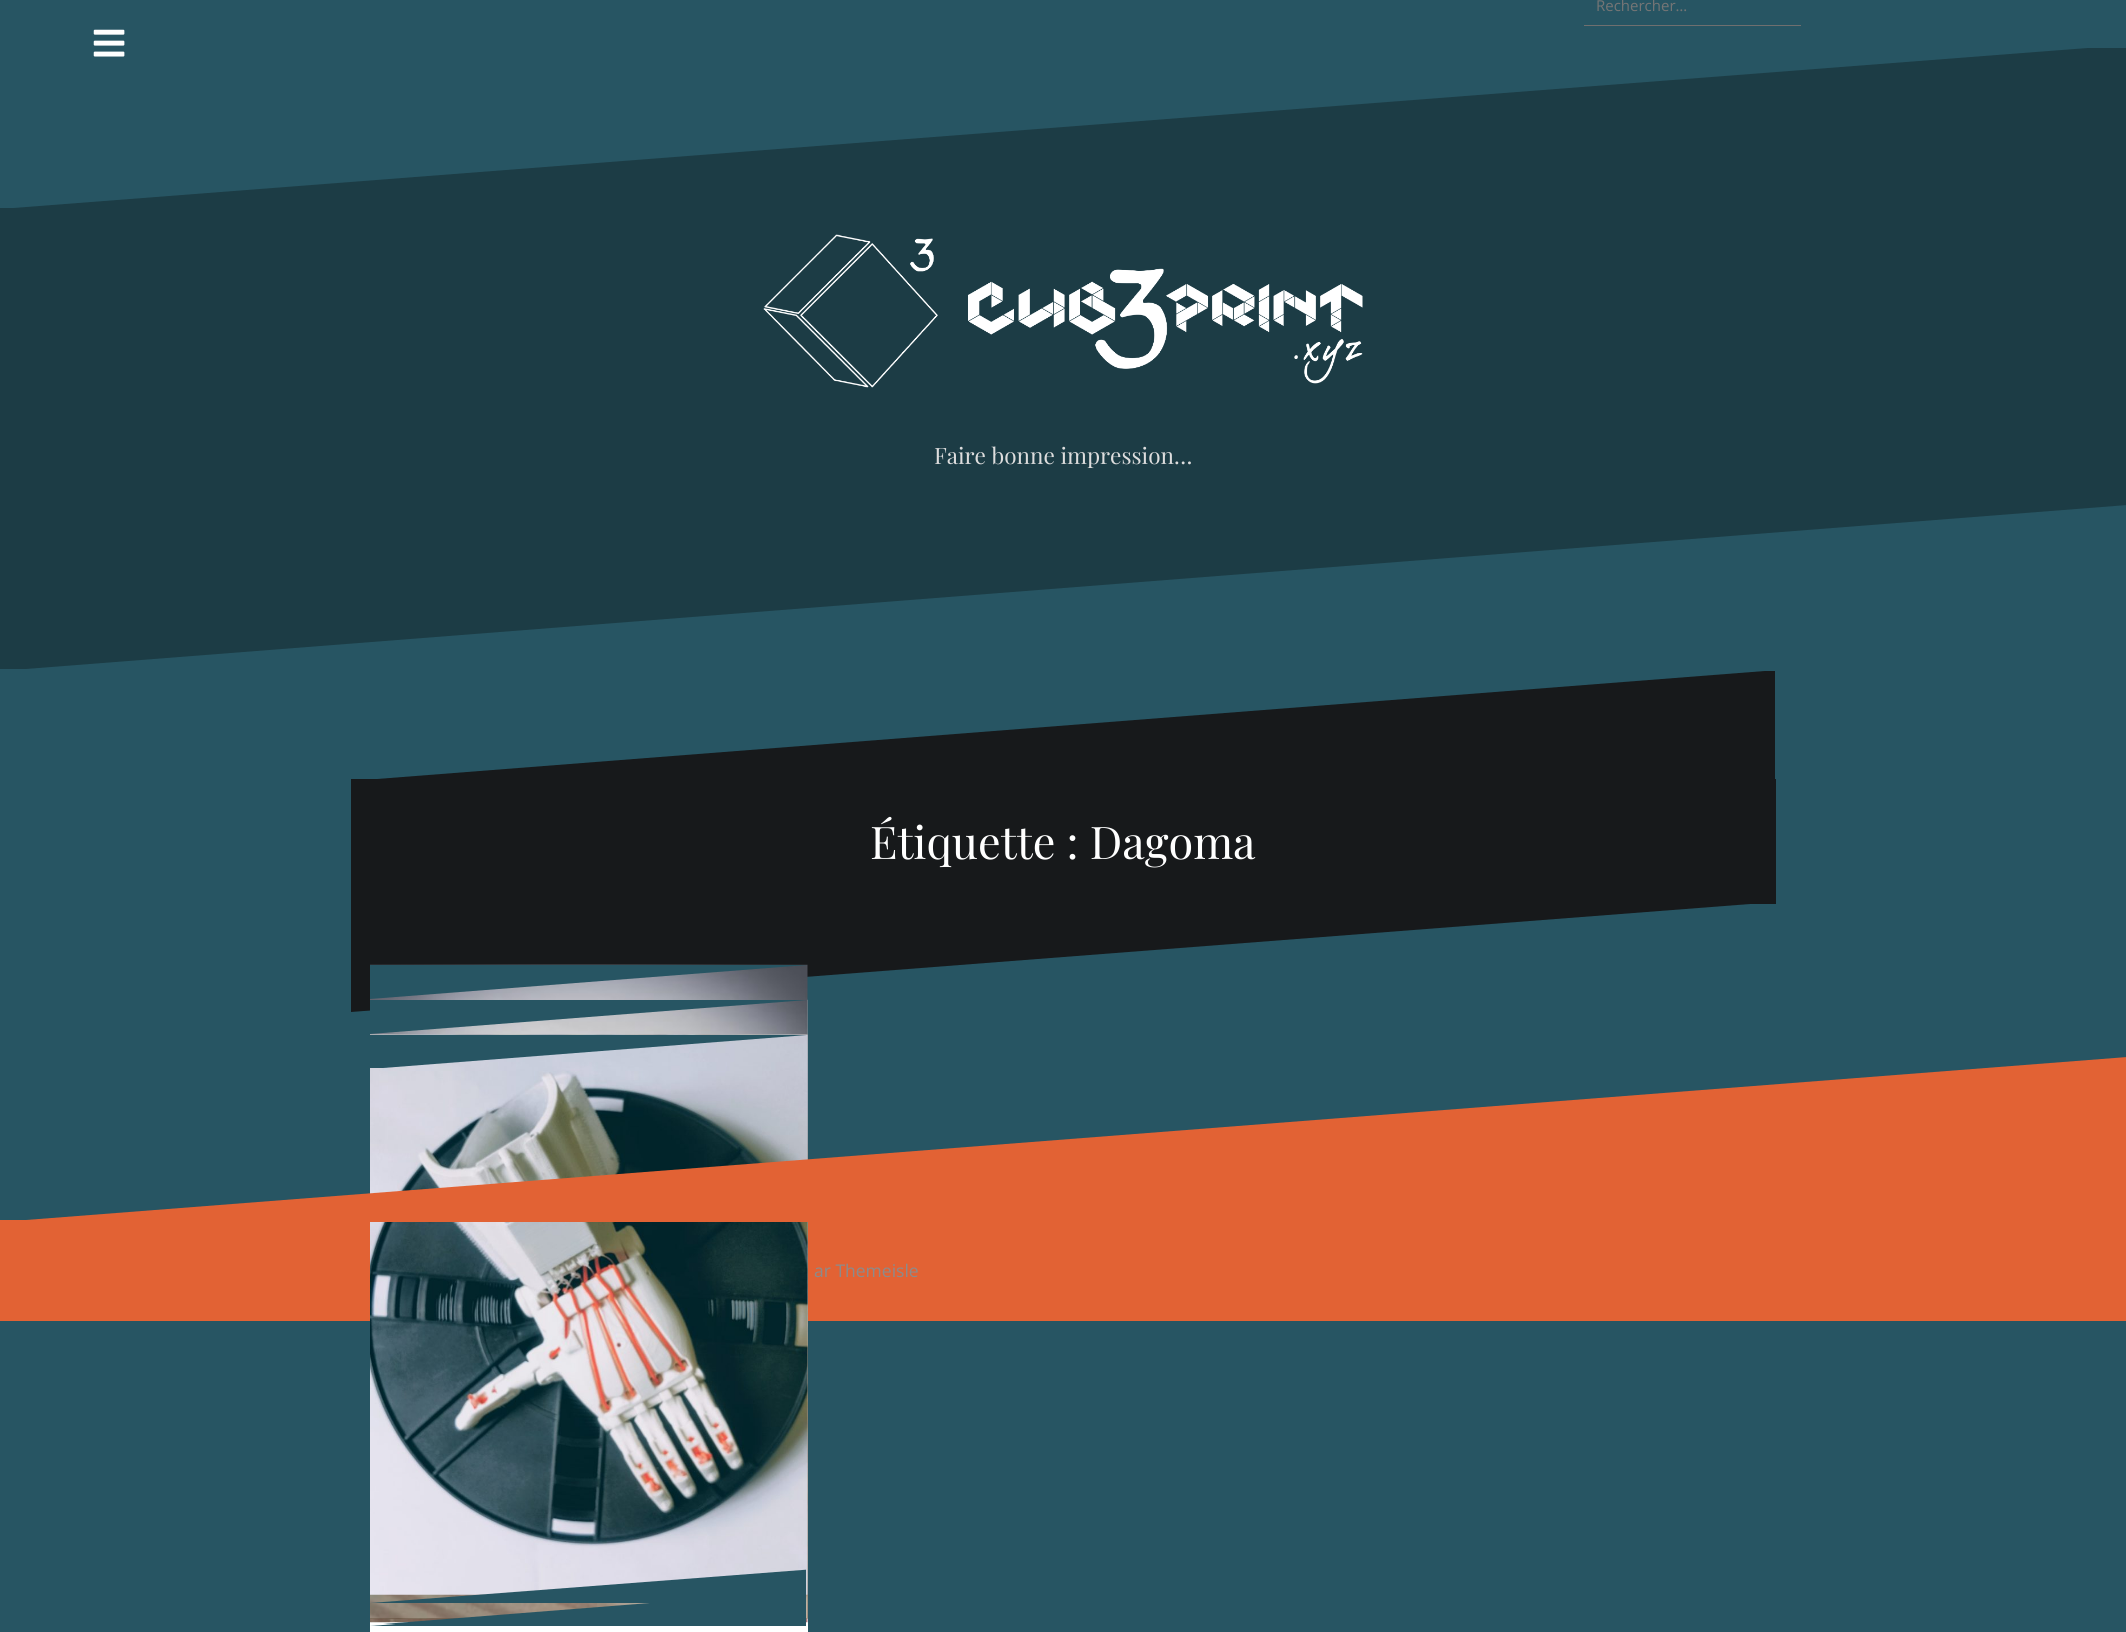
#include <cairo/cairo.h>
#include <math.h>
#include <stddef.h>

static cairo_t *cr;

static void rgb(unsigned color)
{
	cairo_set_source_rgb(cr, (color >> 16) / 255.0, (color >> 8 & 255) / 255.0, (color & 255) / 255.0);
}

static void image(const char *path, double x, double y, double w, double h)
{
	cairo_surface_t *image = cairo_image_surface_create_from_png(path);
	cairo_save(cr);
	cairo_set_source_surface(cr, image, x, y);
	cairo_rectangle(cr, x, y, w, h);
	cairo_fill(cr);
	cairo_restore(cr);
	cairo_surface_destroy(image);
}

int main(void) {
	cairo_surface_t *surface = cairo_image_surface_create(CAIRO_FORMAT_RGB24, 2126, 1632);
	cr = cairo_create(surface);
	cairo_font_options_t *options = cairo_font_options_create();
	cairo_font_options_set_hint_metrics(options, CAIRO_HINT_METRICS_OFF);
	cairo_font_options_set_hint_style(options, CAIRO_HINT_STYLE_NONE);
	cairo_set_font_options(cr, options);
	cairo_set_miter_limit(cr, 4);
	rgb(0x275563);
	cairo_paint(cr);
	rgb(0x6f6f6f);
	cairo_rectangle(cr, 1584, 25, 217, 1);
	cairo_fill(cr);
	rgb(0x1c3c45);
	cairo_rectangle(cr, 0, 48, 2126, 621);
	cairo_fill(cr);
	cairo_save(cr);
	cairo_rectangle(cr, 0, 45, 2126, 163);
	cairo_clip(cr);
	rgb(0x275563);
	cairo_new_path(cr);
	cairo_move_to(cr, 0, 209);
	cairo_line_to(cr, 0, 45);
	cairo_line_to(cr, 2126, 45);
	cairo_fill(cr);
	cairo_restore(cr);
	image("img/1.png", 93, 29, 32, 28);
	image("img/2.png", 763, 234, 600, 154);
	rgb(0x17191b);
	cairo_rectangle(cr, 351, 779, 1425, 125);
	cairo_fill(cr);
	cairo_save(cr);
	cairo_rectangle(cr, 351, 668, 1424, 112);
	cairo_clip(cr);
	cairo_new_path(cr);
	cairo_move_to(cr, 1803, 668);
	cairo_line_to(cr, 1803, 781);
	cairo_line_to(cr, 351, 781);
	cairo_fill(cr);
	cairo_restore(cr);
	rgb(0x275563);
	cairo_new_path(cr);
	cairo_move_to(cr, 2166, 502);
	cairo_line_to(cr, 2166, 671);
	cairo_line_to(cr, 0, 671);
	cairo_fill(cr);
	cairo_save(cr);
	cairo_rectangle(cr, 351, 903, 1424, 110);
	cairo_clip(cr);
	rgb(0x17191b);
	cairo_new_path(cr);
	cairo_move_to(cr, 351, 1012);
	cairo_line_to(cr, 351, 902);
	cairo_line_to(cr, 1776, 902);
	cairo_fill(cr);
	cairo_restore(cr);
	rgb(0xe26234);
	cairo_rectangle(cr, 0, 1220, 2126, 101);
	cairo_fill(cr);
	image("img/11.png", 807, 1034, 1, 330);
	image("img/4.png", 807, 999, 1, 495);
	image("img/3.png", 370, 964, 438, 402);
	rgb(0x275563);
	cairo_new_path(cr);
	cairo_move_to(cr, 370, 999);
	cairo_line_to(cr, 370, 965);
	cairo_line_to(cr, 807, 965);
	cairo_fill(cr);
	image("img/6.png", 370, 1034, 438, 271);
	rgb(0xffffff);
	cairo_rectangle(cr, 370, 1595, 438, 37);
	cairo_fill(cr);
	image("img/7.png", 370, 1034, 438, 589);
	image("img/8.png", 370, 1034, 438, 585);
	image("img/9.png", 370, 1034, 438, 585);
	image("img/10.png", 370, 1034, 438, 585);
	image("img/5.png", 370, 1034, 438, 561);
	cairo_save(cr);
	cairo_rectangle(cr, 370, 1590, 436, 34);
	cairo_clip(cr);
	rgb(0x275563);
	cairo_new_path(cr);
	cairo_move_to(cr, 815, 1590);
	cairo_line_to(cr, 815, 1625);
	cairo_line_to(cr, 370, 1625);
	cairo_fill(cr);
	cairo_restore(cr);
	cairo_save(cr);
	cairo_rectangle(cr, 370, 1591, 436, 35);
	cairo_clip(cr);
	rgb(0x275563);
	cairo_new_path(cr);
	cairo_move_to(cr, 815, 1591);
	cairo_line_to(cr, 815, 1626);
	cairo_line_to(cr, 370, 1626);
	cairo_fill(cr);
	cairo_restore(cr);
	rgb(0x275563);
	cairo_new_path(cr);
	cairo_move_to(cr, 370, 1034);
	cairo_line_to(cr, 370, 1000);
	cairo_line_to(cr, 807, 1000);
	cairo_fill(cr);
	rgb(0xe26234);
	cairo_new_path(cr);
	cairo_move_to(cr, 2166, 1054);
	cairo_line_to(cr, 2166, 1222);
	cairo_line_to(cr, 0, 1222);
	cairo_fill(cr);
	cairo_save(cr);
	cairo_rectangle(cr, 370, 1035, 436, 33);
	cairo_clip(cr);
	rgb(0x275563);
	cairo_new_path(cr);
	cairo_move_to(cr, 370, 1069);
	cairo_line_to(cr, 370, 1035);
	cairo_line_to(cr, 807, 1035);
	cairo_fill(cr);
	cairo_restore(cr);
	cairo_save(cr);
	cairo_rectangle(cr, 370, 1569, 436, 35);
	cairo_clip(cr);
	rgb(0x275563);
	cairo_new_path(cr);
	cairo_move_to(cr, 815, 1569);
	cairo_line_to(cr, 815, 1603);
	cairo_line_to(cr, 370, 1603);
	cairo_fill(cr);
	cairo_restore(cr);
	cairo_select_font_face(cr, "Open Sans", CAIRO_FONT_SLANT_NORMAL, CAIRO_FONT_WEIGHT_NORMAL);
	cairo_set_font_size(cr, 15);
	rgb(0x757575);
	cairo_move_to(cr, 1596, 11);
	cairo_show_text(cr, "Rechercher…");
	cairo_select_font_face(cr, "Playfair Display", CAIRO_FONT_SLANT_NORMAL, CAIRO_FONT_WEIGHT_NORMAL);
	cairo_set_font_size(cr, 22.5);
	rgb(0xdddddd);
	cairo_move_to(cr, 934, 464);
	cairo_show_text(cr, "Faire bonne impression…");
	cairo_set_font_size(cr, 45);
	rgb(0xffffff);
	cairo_move_to(cr, 870, 859);
	cairo_show_text(cr, "Étiquette : Dagoma");
	cairo_select_font_face(cr, "Open Sans", CAIRO_FONT_SLANT_NORMAL, CAIRO_FONT_WEIGHT_NORMAL);
	cairo_set_font_size(cr, 17.5);
	rgb(0x8b8b8b);
	cairo_move_to(cr, 814, 1277);
	cairo_show_text(cr, "ar Themeisle");
	cairo_surface_write_to_png(surface, "page.png");
	cairo_font_options_destroy(options);
	cairo_destroy(cr);
	cairo_surface_destroy(surface);
	return 0;
}
